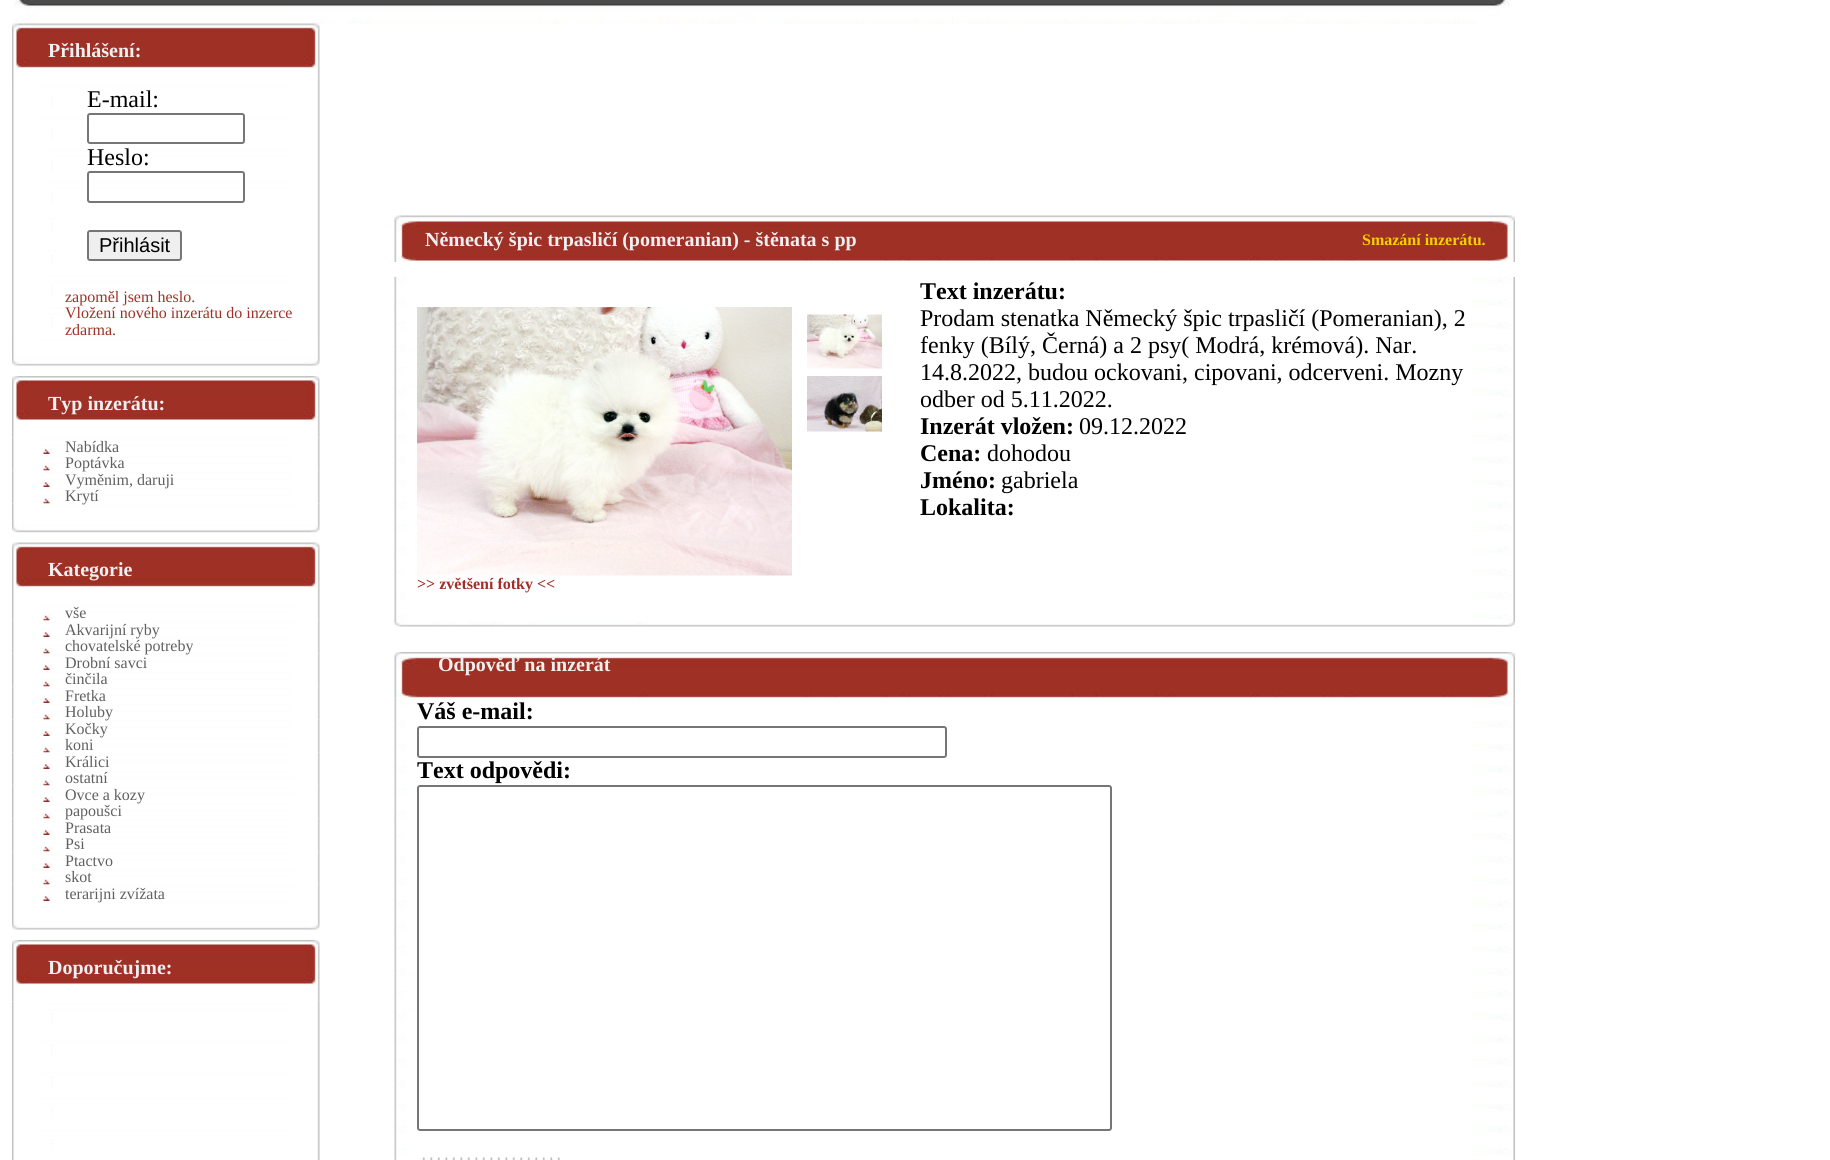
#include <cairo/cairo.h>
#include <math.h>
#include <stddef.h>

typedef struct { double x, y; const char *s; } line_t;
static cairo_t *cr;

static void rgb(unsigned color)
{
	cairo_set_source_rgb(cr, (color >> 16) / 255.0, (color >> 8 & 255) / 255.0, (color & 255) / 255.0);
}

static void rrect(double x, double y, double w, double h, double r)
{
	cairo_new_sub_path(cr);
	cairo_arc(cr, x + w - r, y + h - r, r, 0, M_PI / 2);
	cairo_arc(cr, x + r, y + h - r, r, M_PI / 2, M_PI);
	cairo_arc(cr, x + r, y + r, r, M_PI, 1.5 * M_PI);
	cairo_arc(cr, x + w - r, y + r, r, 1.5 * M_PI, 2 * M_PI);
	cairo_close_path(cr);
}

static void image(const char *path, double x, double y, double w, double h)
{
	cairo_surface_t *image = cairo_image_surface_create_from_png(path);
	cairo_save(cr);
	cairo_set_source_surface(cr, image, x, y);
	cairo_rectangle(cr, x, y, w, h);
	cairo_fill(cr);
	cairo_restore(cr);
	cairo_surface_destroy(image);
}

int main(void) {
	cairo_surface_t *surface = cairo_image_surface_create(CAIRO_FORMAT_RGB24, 1830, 1160);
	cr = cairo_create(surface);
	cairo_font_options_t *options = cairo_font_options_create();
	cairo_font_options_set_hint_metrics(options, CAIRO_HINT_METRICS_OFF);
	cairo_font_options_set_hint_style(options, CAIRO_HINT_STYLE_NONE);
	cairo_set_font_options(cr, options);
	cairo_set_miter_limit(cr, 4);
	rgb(0xffffff);
	cairo_paint(cr);
	image("img/1.png", 14, 0, 1496, 24);
	image("img/2.png", 12, 23, 308, 62);
	image("img/3.png", 12, 85, 308, 252);
	rrect(88, 114, 156, 29, 2);
	rgb(0x767676);
	cairo_stroke(cr);
	rrect(88, 172, 156, 30, 2);
	cairo_stroke(cr);
	rgb(0xefefef);
	rrect(88, 231, 93, 29, 2);
	cairo_fill_preserve(cr);
	rgb(0x767676);
	cairo_stroke(cr);
	image("img/4.png", 12, 337, 308, 30);
	image("img/5.png", 12, 376, 308, 62);
	image("img/6.png", 12, 437, 308, 17);
	image("img/7.png", 12, 454, 308, 17);
	image("img/8.png", 12, 470, 308, 17);
	image("img/7.png", 12, 487, 308, 17);
	image("img/9.png", 12, 503, 308, 30);
	image("img/10.png", 12, 542, 308, 62);
	image("img/7.png", 12, 604, 308, 17);
	image("img/8.png", 12, 620, 308, 17);
	image("img/7.png", 12, 637, 308, 17);
	image("img/8.png", 12, 653, 308, 17);
	image("img/7.png", 12, 670, 308, 17);
	image("img/8.png", 12, 686, 308, 17);
	image("img/7.png", 12, 703, 308, 17);
	image("img/8.png", 12, 719, 308, 17);
	image("img/7.png", 12, 736, 308, 17);
	image("img/8.png", 12, 752, 308, 17);
	image("img/7.png", 12, 769, 308, 17);
	image("img/8.png", 12, 785, 308, 17);
	image("img/7.png", 12, 802, 308, 17);
	image("img/8.png", 12, 818, 308, 17);
	image("img/7.png", 12, 835, 308, 17);
	image("img/8.png", 12, 851, 308, 17);
	image("img/7.png", 12, 868, 308, 17);
	image("img/8.png", 12, 884, 308, 17);
	image("img/4.png", 12, 901, 308, 30);
	image("img/5.png", 12, 940, 308, 62);
	image("img/11.png", 12, 1001, 308, 159);
	image("img/12.png", 394, 215, 1121, 47);
	image("img/13.png", 394, 277, 1121, 342);
	image("img/14.png", 807, 314, 75, 55);
	image("img/15.png", 807, 376, 75, 56);
	image("img/16.png", 417, 307, 375, 269);
	image("img/17.png", 394, 619, 1121, 8);
	image("img/18.png", 394, 652, 1121, 47);
	image("img/19.png", 394, 698, 1121, 462);
	rrect(418, 727, 528, 30, 2);
	cairo_stroke(cr);
	rrect(418, 786, 693, 344, 2);
	cairo_stroke(cr);
	image("img/20.png", 422, 1157, 138, 3);
	cairo_select_font_face(cr, "Liberation Serif", CAIRO_FONT_SLANT_NORMAL, CAIRO_FONT_WEIGHT_BOLD);
	cairo_set_font_size(cr, 20);
	rgb(0xf0f0f0);
	cairo_move_to(cr, 48, 57);
	cairo_show_text(cr, "Přihlášení:");
	cairo_select_font_face(cr, "Liberation Serif", CAIRO_FONT_SLANT_NORMAL, CAIRO_FONT_WEIGHT_NORMAL);
	cairo_set_font_size(cr, 24);
	rgb(0x000000);
	cairo_move_to(cr, 87, 107);
	cairo_show_text(cr, "E-mail:");
	cairo_move_to(cr, 87, 165);
	cairo_show_text(cr, "Heslo:");
	cairo_select_font_face(cr, "Liberation Sans", CAIRO_FONT_SLANT_NORMAL, CAIRO_FONT_WEIGHT_NORMAL);
	cairo_set_font_size(cr, 20);
	cairo_move_to(cr, 99, 252);
	cairo_show_text(cr, "Přihlásit");
	cairo_select_font_face(cr, "Liberation Serif", CAIRO_FONT_SLANT_NORMAL, CAIRO_FONT_WEIGHT_NORMAL);
	cairo_set_font_size(cr, 16);
	rgb(0x9f3027);
	{
		static const line_t items[] = {
			{65, 302, "zapoměl jsem heslo."},
			{65, 318, "Vložení nového inzerátu do inzerce"},
			{65, 335, "zdarma."},
		};
		for (size_t i = 0; i < sizeof items / sizeof *items; i++) {
			cairo_move_to(cr, items[i].x, items[i].y);
			cairo_show_text(cr, items[i].s);
		}
	}
	cairo_select_font_face(cr, "Liberation Serif", CAIRO_FONT_SLANT_NORMAL, CAIRO_FONT_WEIGHT_BOLD);
	cairo_set_font_size(cr, 20);
	rgb(0xf0f0f0);
	cairo_move_to(cr, 48, 410);
	cairo_show_text(cr, "Typ inzerátu:");
	cairo_select_font_face(cr, "Liberation Serif", CAIRO_FONT_SLANT_NORMAL, CAIRO_FONT_WEIGHT_NORMAL);
	cairo_set_font_size(cr, 16);
	rgb(0x606060);
	{
		static const line_t items[] = {
			{65, 452, "Nabídka"},
			{65, 468, "Poptávka"},
			{65, 485, "Vyměnim, daruji"},
			{65, 501, "Krytí"},
		};
		for (size_t i = 0; i < sizeof items / sizeof *items; i++) {
			cairo_move_to(cr, items[i].x, items[i].y);
			cairo_show_text(cr, items[i].s);
		}
	}
	cairo_select_font_face(cr, "Liberation Serif", CAIRO_FONT_SLANT_NORMAL, CAIRO_FONT_WEIGHT_BOLD);
	cairo_set_font_size(cr, 20);
	rgb(0xf0f0f0);
	cairo_move_to(cr, 48, 576);
	cairo_show_text(cr, "Kategorie");
	cairo_select_font_face(cr, "Liberation Serif", CAIRO_FONT_SLANT_NORMAL, CAIRO_FONT_WEIGHT_NORMAL);
	cairo_set_font_size(cr, 16);
	rgb(0x606060);
	{
		static const line_t items[] = {
			{65, 618, "vše"},
			{65, 635, "Akvarijní ryby"},
			{65, 651, "chovatelské potreby"},
			{65, 668, "Drobní savci"},
			{65, 684, "činčila"},
			{65, 701, "Fretka"},
			{65, 717, "Holuby"},
			{65, 734, "Kočky"},
			{65, 750, "koni"},
			{65, 767, "Králici"},
			{65, 783, "ostatní"},
			{65, 800, "Ovce a kozy"},
			{65, 816, "papoušci"},
			{65, 833, "Prasata"},
			{65, 849, "Psi"},
			{65, 866, "Ptactvo"},
			{65, 882, "skot"},
			{65, 899, "terarijni zvížata"},
		};
		for (size_t i = 0; i < sizeof items / sizeof *items; i++) {
			cairo_move_to(cr, items[i].x, items[i].y);
			cairo_show_text(cr, items[i].s);
		}
	}
	cairo_select_font_face(cr, "Liberation Serif", CAIRO_FONT_SLANT_NORMAL, CAIRO_FONT_WEIGHT_BOLD);
	cairo_set_font_size(cr, 20);
	rgb(0xf0f0f0);
	cairo_move_to(cr, 48, 974);
	cairo_show_text(cr, "Doporučujme:");
	cairo_move_to(cr, 425, 246);
	cairo_show_text(cr, "Německý špic trpasličí (pomeranian) - štěnata s pp");
	cairo_set_font_size(cr, 16);
	rgb(0xf3d100);
	cairo_move_to(cr, 1362, 245);
	cairo_show_text(cr, "Smazání inzerátu.");
	cairo_set_font_size(cr, 24);
	rgb(0x000000);
	cairo_move_to(cr, 920, 299);
	cairo_show_text(cr, "Text inzerátu:");
	cairo_select_font_face(cr, "Liberation Serif", CAIRO_FONT_SLANT_NORMAL, CAIRO_FONT_WEIGHT_NORMAL);
	{
		static const line_t items[] = {
			{920, 326, "Prodam stenatka Německý špic trpasličí (Pomeranian), 2"},
			{920, 353, "fenky (Bílý, Černá) a 2 psy( Modrá, krémová). Nar."},
			{920, 380, "14.8.2022, budou ockovani, cipovani, odcerveni. Mozny"},
			{920, 407, "odber od 5.11.2022."},
		};
		for (size_t i = 0; i < sizeof items / sizeof *items; i++) {
			cairo_move_to(cr, items[i].x, items[i].y);
			cairo_show_text(cr, items[i].s);
		}
	}
	cairo_select_font_face(cr, "Liberation Serif", CAIRO_FONT_SLANT_NORMAL, CAIRO_FONT_WEIGHT_BOLD);
	cairo_move_to(cr, 920, 434);
	cairo_show_text(cr, "Inzerát vložen:");
	cairo_select_font_face(cr, "Liberation Serif", CAIRO_FONT_SLANT_NORMAL, CAIRO_FONT_WEIGHT_NORMAL);
	cairo_move_to(cr, 1079, 434);
	cairo_show_text(cr, "09.12.2022");
	cairo_select_font_face(cr, "Liberation Serif", CAIRO_FONT_SLANT_NORMAL, CAIRO_FONT_WEIGHT_BOLD);
	cairo_move_to(cr, 920, 461);
	cairo_show_text(cr, "Cena:");
	cairo_select_font_face(cr, "Liberation Serif", CAIRO_FONT_SLANT_NORMAL, CAIRO_FONT_WEIGHT_NORMAL);
	cairo_move_to(cr, 987, 461);
	cairo_show_text(cr, "dohodou");
	cairo_select_font_face(cr, "Liberation Serif", CAIRO_FONT_SLANT_NORMAL, CAIRO_FONT_WEIGHT_BOLD);
	cairo_move_to(cr, 920, 488);
	cairo_show_text(cr, "Jméno:");
	cairo_select_font_face(cr, "Liberation Serif", CAIRO_FONT_SLANT_NORMAL, CAIRO_FONT_WEIGHT_NORMAL);
	cairo_move_to(cr, 1001, 488);
	cairo_show_text(cr, "gabriela");
	cairo_select_font_face(cr, "Liberation Serif", CAIRO_FONT_SLANT_NORMAL, CAIRO_FONT_WEIGHT_BOLD);
	cairo_move_to(cr, 920, 515);
	cairo_show_text(cr, "Lokalita:");
	cairo_set_font_size(cr, 16);
	rgb(0x9f3027);
	cairo_move_to(cr, 417, 589);
	cairo_show_text(cr, ">> zvětšení fotky <<");
	cairo_set_font_size(cr, 20);
	rgb(0xf0f0f0);
	cairo_move_to(cr, 438, 671);
	cairo_show_text(cr, "Odpověď na inzerát");
	cairo_set_font_size(cr, 24);
	rgb(0x000000);
	cairo_move_to(cr, 417, 719);
	cairo_show_text(cr, "Váš e-mail:");
	cairo_move_to(cr, 417, 778);
	cairo_show_text(cr, "Text odpovědi:");
	cairo_surface_write_to_png(surface, "page.png");
	cairo_font_options_destroy(options);
	cairo_destroy(cr);
	cairo_surface_destroy(surface);
	return 0;
}
